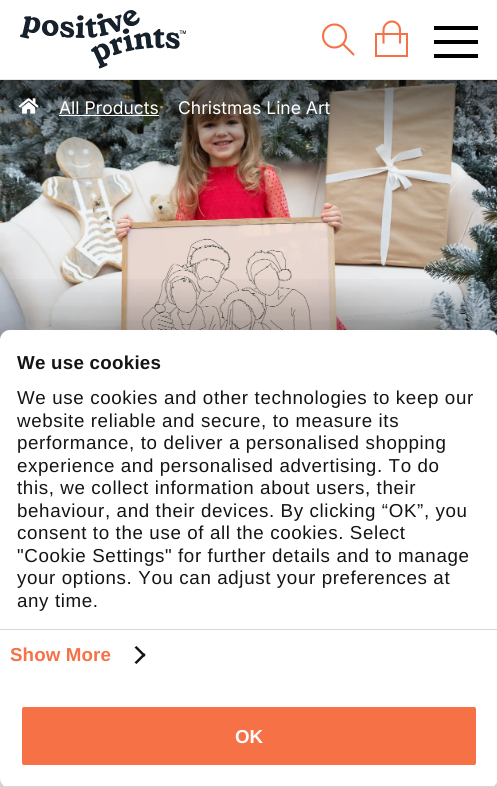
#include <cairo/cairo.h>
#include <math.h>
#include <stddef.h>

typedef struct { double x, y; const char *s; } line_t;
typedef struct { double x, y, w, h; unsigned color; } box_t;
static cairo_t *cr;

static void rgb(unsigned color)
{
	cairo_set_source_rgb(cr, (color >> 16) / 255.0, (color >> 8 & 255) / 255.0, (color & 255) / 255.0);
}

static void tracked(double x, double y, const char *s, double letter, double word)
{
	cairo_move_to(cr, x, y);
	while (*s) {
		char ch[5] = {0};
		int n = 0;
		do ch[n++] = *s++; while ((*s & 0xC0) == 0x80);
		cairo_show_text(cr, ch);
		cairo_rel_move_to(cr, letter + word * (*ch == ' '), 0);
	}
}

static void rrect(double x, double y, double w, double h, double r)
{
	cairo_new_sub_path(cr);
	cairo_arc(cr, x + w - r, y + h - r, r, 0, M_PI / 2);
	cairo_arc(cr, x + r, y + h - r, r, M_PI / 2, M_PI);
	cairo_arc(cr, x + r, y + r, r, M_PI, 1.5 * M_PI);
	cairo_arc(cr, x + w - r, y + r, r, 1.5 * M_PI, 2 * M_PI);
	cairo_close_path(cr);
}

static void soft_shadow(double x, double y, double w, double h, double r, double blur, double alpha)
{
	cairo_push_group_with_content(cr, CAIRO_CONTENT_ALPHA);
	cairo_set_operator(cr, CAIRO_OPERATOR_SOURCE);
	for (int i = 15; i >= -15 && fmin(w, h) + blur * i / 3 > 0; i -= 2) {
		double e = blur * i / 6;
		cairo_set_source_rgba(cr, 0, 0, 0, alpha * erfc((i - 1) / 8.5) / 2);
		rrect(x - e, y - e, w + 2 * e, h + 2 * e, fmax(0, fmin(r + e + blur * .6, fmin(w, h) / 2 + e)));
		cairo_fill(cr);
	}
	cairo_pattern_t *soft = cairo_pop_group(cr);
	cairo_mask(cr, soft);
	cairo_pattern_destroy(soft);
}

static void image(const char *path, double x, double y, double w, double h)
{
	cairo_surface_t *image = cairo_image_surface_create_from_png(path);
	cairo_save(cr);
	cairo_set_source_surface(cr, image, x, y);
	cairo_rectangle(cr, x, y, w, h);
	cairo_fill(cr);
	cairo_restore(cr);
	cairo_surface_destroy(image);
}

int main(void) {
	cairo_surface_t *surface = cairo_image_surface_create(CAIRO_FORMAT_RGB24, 497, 787);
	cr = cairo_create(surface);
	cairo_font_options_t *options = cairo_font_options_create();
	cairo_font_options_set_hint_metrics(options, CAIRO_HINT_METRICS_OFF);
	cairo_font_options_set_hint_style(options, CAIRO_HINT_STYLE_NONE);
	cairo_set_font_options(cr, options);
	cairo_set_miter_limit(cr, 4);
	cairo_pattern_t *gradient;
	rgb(0xf7f7f8);
	cairo_paint(cr);
	rgb(0xffffff);
	cairo_rectangle(cr, 0, 0, 497, 79);
	cairo_fill(cr);
	rgb(0xe6e6e6);
	cairo_rectangle(cr, 0, 79, 497, 1);
	cairo_fill(cr);
	image("img/1.png", 20, 10, 166, 59);
	cairo_arc(cr, 334.5, 36, 11.5, 0, 2 * M_PI);
	rgb(0xf77147);
	cairo_set_line_width(cr, 2.1);
	cairo_stroke(cr);
	cairo_new_path(cr);
	cairo_move_to(cr, 343, 44);
	cairo_line_to(cr, 353.5, 54.5);
	cairo_set_line_cap(cr, CAIRO_LINE_CAP_ROUND);
	cairo_stroke(cr);
	cairo_rectangle(cr, 376, 34, 31, 22);
	cairo_set_line_width(cr, 2);
	cairo_set_line_cap(cr, CAIRO_LINE_CAP_BUTT);
	cairo_stroke(cr);
	cairo_new_path(cr);
	cairo_move_to(cr, 400, 43.5);
	cairo_line_to(cr, 400, 30);
	cairo_curve_to(cr, 400, 25.5, 396.5, 21.5, 392, 21.5);
	cairo_curve_to(cr, 387.5, 21.5, 383.5, 25.5, 383.5, 30);
	cairo_line_to(cr, 383.5, 43.5);
	cairo_set_line_width(cr, 2.1);
	cairo_stroke(cr);
	{
		static const box_t items[] = {
			{434, 26, 44, 4, 0x000000},
			{434, 40, 44, 4, 0x000000},
			{434, 54, 44, 4, 0x000000},
		};
		for (size_t i = 0; i < sizeof items / sizeof *items; i++) {
			rgb(items[i].color);
			cairo_rectangle(cr, items[i].x, items[i].y, items[i].w, items[i].h);
			cairo_fill(cr);
		}
	}
	image("img/2.png", 0, 80, 497, 260);
	gradient = cairo_pattern_create_linear(249, 549, 249, 75);
	cairo_pattern_add_color_stop_rgba(gradient, 0.8, 0.098, 0.09, 0.075, 0);
	cairo_pattern_add_color_stop_rgba(gradient, 0.81, 0, 0, 0, 0);
	cairo_pattern_add_color_stop_rgba(gradient, 1, 0, 0, 0, 0.6);
	cairo_set_source(cr, gradient);
	cairo_pattern_destroy(gradient);
	cairo_rectangle(cr, 0, 80, 497, 82);
	cairo_fill(cr);
	image("img/3.png", 18, 98, 21, 16);
	image("img/4.png", 47, 103, 6, 10);
	rgb(0xffffff);
	cairo_rectangle(cr, 59, 115, 100, 1);
	cairo_fill(cr);
	image("img/5.png", 165, 103, 7, 10);
	gradient = cairo_pattern_create_linear(249, 75, 249, 549);
	cairo_pattern_add_color_stop_rgba(gradient, 0, 0.098, 0.09, 0.075, 0);
	cairo_pattern_add_color_stop_rgba(gradient, 0, 0.031, 0, 0.024, 0);
	cairo_pattern_add_color_stop_rgba(gradient, 0.42, 0, 0, 0, 0);
	cairo_pattern_add_color_stop_rgba(gradient, 0.85, 0, 0, 0, 0.87);
	cairo_set_source(cr, gradient);
	cairo_pattern_destroy(gradient);
	cairo_rectangle(cr, 0, 279, 497, 61);
	cairo_fill(cr);
	rgb(0x000000);
	soft_shadow(0, 370, 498, 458, 10, 42.5, 0.3);
	rgb(0xffffff);
	rrect(0, 330, 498, 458, 10);
	cairo_fill(cr);
	rgb(0xd6d6d6);
	cairo_rectangle(cr, 0, 629, 497, 1);
	cairo_fill(cr);
	rgb(0x141414);
	cairo_new_path(cr);
	cairo_move_to(cr, 136.5, 646);
	cairo_line_to(cr, 145.5, 655);
	cairo_line_to(cr, 144, 657);
	cairo_line_to(cr, 134.5, 647.5);
	cairo_close_path(cr);
	cairo_fill(cr);
	cairo_new_path(cr);
	cairo_move_to(cr, 144, 653);
	cairo_line_to(cr, 145.5, 655);
	cairo_line_to(cr, 136.5, 664);
	cairo_line_to(cr, 134.5, 662.5);
	cairo_close_path(cr);
	cairo_fill(cr);
	cairo_save(cr);
	rrect(0, 330, 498, 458, 10);
	cairo_clip(cr);
	rgb(0xd6d6d6);
	cairo_rectangle(cr, 0, 786, 497, 1);
	cairo_fill(cr);
	cairo_restore(cr);
	rgb(0xf77147);
	rrect(20.5, 705.5, 457, 61, 3.5);
	cairo_fill_preserve(cr);
	rgb(0xffffff);
	cairo_set_line_width(cr, 3);
	cairo_stroke(cr);
	cairo_select_font_face(cr, "Inter", CAIRO_FONT_SLANT_NORMAL, CAIRO_FONT_WEIGHT_NORMAL);
	cairo_set_font_size(cr, 17.5);
	cairo_move_to(cr, 59, 114);
	cairo_show_text(cr, "All Products");
	cairo_move_to(cr, 178, 114);
	cairo_show_text(cr, "Christmas Line Art");
	cairo_select_font_face(cr, "Liberation Sans", CAIRO_FONT_SLANT_NORMAL, CAIRO_FONT_WEIGHT_BOLD);
	cairo_set_font_size(cr, 18.75);
	rgb(0x141414);
	tracked(17, 369, "We use cookies", 0.25, 0);
	cairo_select_font_face(cr, "Liberation Sans", CAIRO_FONT_SLANT_NORMAL, CAIRO_FONT_WEIGHT_NORMAL);
	{
		static const line_t items[] = {
			{17, 404, "We use cookies and other technologies to keep our"},
			{17, 427, "website reliable and secure, to measure its"},
			{17, 449, "performance, to deliver a personalised shopping"},
			{17, 472, "experience and personalised advertising. To do"},
			{17, 494, "this, we collect information about users, their"},
			{17, 517, "behaviour, and their devices. By clicking “OK”, you"},
			{17, 539, "consent to the use of all the cookies. Select"},
			{17, 562, "\"Cookie Settings\" for further details and to manage"},
			{17, 584, "your options. You can adjust your preferences at"},
			{17, 607, "any time."},
		};
		for (size_t i = 0; i < sizeof items / sizeof *items; i++) {
			tracked(items[i].x, items[i].y, items[i].s, 0.62, 0);
		}
	}
	cairo_select_font_face(cr, "Liberation Sans", CAIRO_FONT_SLANT_NORMAL, CAIRO_FONT_WEIGHT_BOLD);
	rgb(0xf77147);
	tracked(10, 661, "Show More", 0.1, 0);
	rgb(0xffffff);
	cairo_move_to(cr, 235, 743);
	cairo_show_text(cr, "OK");
	cairo_surface_write_to_png(surface, "page.png");
	cairo_font_options_destroy(options);
	cairo_destroy(cr);
	cairo_surface_destroy(surface);
	return 0;
}
